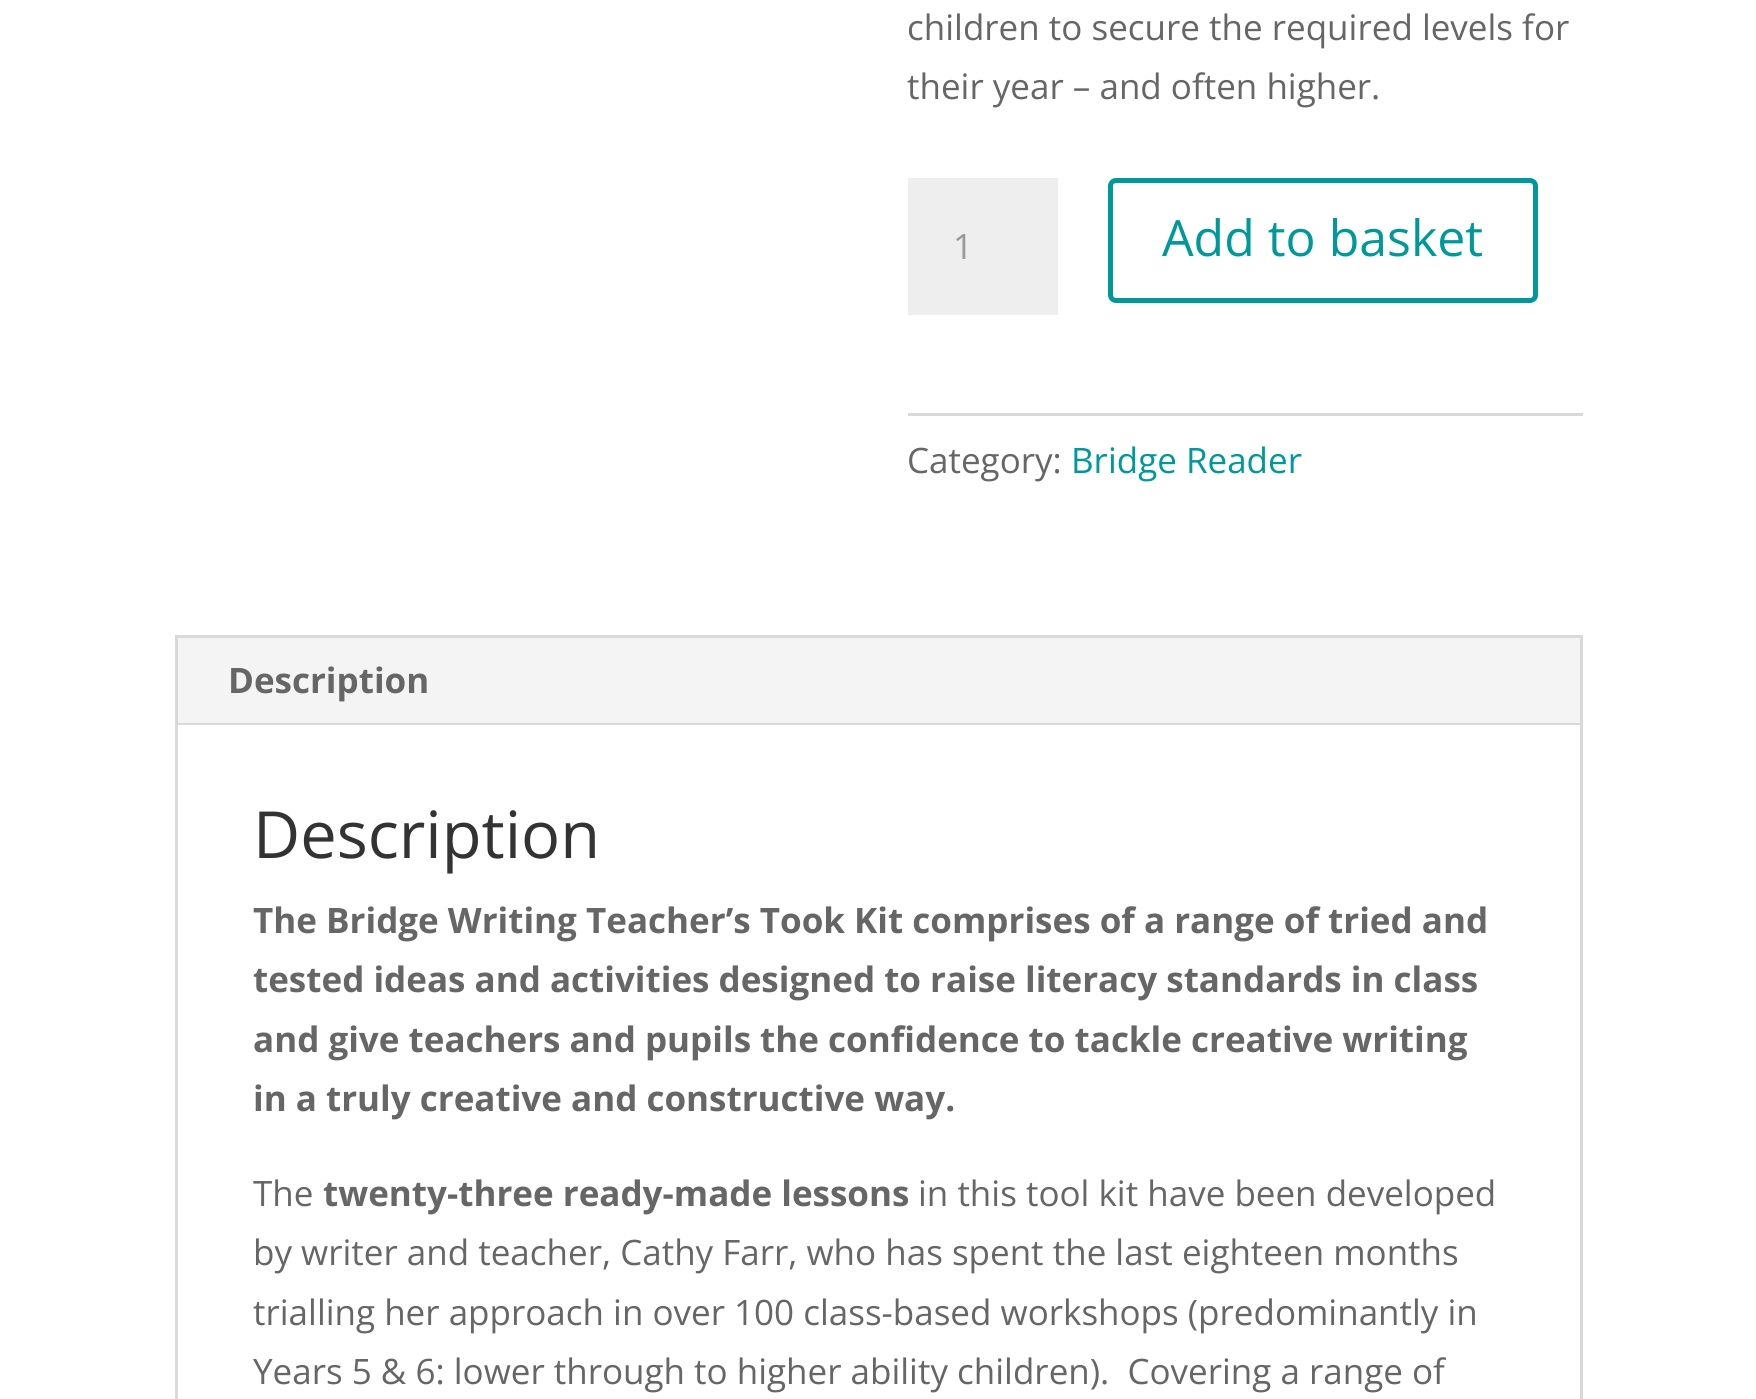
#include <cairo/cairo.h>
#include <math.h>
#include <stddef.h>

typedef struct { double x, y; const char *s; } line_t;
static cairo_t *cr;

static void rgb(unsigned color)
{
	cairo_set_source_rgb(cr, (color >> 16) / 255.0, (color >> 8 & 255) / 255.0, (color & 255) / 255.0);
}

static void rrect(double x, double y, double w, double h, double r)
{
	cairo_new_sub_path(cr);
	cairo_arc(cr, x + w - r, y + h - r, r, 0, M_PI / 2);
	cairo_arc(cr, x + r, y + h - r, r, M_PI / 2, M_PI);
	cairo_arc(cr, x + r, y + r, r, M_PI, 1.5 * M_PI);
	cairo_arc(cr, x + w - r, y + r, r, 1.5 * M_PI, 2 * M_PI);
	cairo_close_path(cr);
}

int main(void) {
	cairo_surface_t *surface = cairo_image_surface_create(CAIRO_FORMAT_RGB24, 1756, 1399);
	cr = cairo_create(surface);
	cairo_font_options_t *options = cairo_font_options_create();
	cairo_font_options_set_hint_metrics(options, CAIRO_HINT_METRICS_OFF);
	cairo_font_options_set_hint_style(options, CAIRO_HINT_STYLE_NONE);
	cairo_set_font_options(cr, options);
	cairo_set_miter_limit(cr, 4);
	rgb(0xffffff);
	cairo_paint(cr);
	rgb(0xeeeeee);
	cairo_rectangle(cr, 908, 178, 150, 137);
	cairo_fill(cr);
	rrect(1110.5, 180.5, 425, 120, 5.5);
	rgb(0x00989a);
	cairo_set_line_width(cr, 5);
	cairo_stroke(cr);
	rgb(0xdadada);
	cairo_rectangle(cr, 908, 413, 675, 3);
	cairo_fill(cr);
	cairo_rectangle(cr, 176.5, 636.5, 1405, 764);
	rgb(0xd9d9d9);
	cairo_set_line_width(cr, 3);
	cairo_stroke(cr);
	rgb(0xf4f4f4);
	cairo_rectangle(cr, 178, 638, 1402, 85);
	cairo_fill(cr);
	rgb(0xd9d9d9);
	cairo_rectangle(cr, 178, 723, 1402, 2);
	cairo_fill(cr);
	cairo_select_font_face(cr, "Open Sans", CAIRO_FONT_SLANT_NORMAL, CAIRO_FONT_WEIGHT_NORMAL);
	cairo_set_font_size(cr, 35);
	rgb(0x666666);
	cairo_move_to(cr, 907, 40);
	cairo_show_text(cr, "children to secure the required levels for");
	cairo_move_to(cr, 907, 99);
	cairo_show_text(cr, "their year – and often higher.");
	rgb(0x999999);
	cairo_move_to(cr, 953, 259);
	cairo_show_text(cr, "1");
	cairo_set_font_size(cr, 50);
	rgb(0x00989a);
	cairo_move_to(cr, 1162, 256);
	cairo_show_text(cr, "Add to basket");
	cairo_set_font_size(cr, 35);
	rgb(0x666666);
	cairo_move_to(cr, 907, 473);
	cairo_show_text(cr, "Category:");
	rgb(0x00989a);
	cairo_move_to(cr, 1071, 473);
	cairo_show_text(cr, "Bridge Reader");
	cairo_select_font_face(cr, "Open Sans", CAIRO_FONT_SLANT_NORMAL, CAIRO_FONT_WEIGHT_BOLD);
	rgb(0x666666);
	cairo_move_to(cr, 228, 693);
	cairo_show_text(cr, "Description");
	cairo_select_font_face(cr, "Open Sans", CAIRO_FONT_SLANT_NORMAL, CAIRO_FONT_WEIGHT_NORMAL);
	cairo_set_font_size(cr, 65);
	rgb(0x333333);
	cairo_move_to(cr, 253, 858);
	cairo_show_text(cr, "Description");
	cairo_select_font_face(cr, "Open Sans", CAIRO_FONT_SLANT_NORMAL, CAIRO_FONT_WEIGHT_BOLD);
	cairo_set_font_size(cr, 35);
	rgb(0x666666);
	{
		static const line_t items[] = {
			{253, 933, "The Bridge Writing Teacher’s Took Kit comprises of a range of tried and"},
			{253, 992, "tested ideas and activities designed to raise literacy standards in class"},
			{253, 1052, "and give teachers and pupils the confidence to tackle creative writing"},
			{253, 1111, "in a truly creative and constructive way."},
		};
		for (size_t i = 0; i < sizeof items / sizeof *items; i++) {
			cairo_move_to(cr, items[i].x, items[i].y);
			cairo_show_text(cr, items[i].s);
		}
	}
	cairo_select_font_face(cr, "Open Sans", CAIRO_FONT_SLANT_NORMAL, CAIRO_FONT_WEIGHT_NORMAL);
	cairo_move_to(cr, 253, 1206);
	cairo_show_text(cr, "The");
	cairo_select_font_face(cr, "Open Sans", CAIRO_FONT_SLANT_NORMAL, CAIRO_FONT_WEIGHT_BOLD);
	cairo_move_to(cr, 323, 1206);
	cairo_show_text(cr, "twenty-three ready-made lessons");
	cairo_select_font_face(cr, "Open Sans", CAIRO_FONT_SLANT_NORMAL, CAIRO_FONT_WEIGHT_NORMAL);
	{
		static const line_t items[] = {
			{918, 1206, "in this tool kit have been developed"},
			{253, 1265, "by writer and teacher, Cathy Farr, who has spent the last eighteen months"},
			{253, 1325, "trialling her approach in over 100 class-based workshops (predominantly in"},
			{253, 1384, "Years 5 & 6: lower through to higher ability children).  Covering a range of"},
		};
		for (size_t i = 0; i < sizeof items / sizeof *items; i++) {
			cairo_move_to(cr, items[i].x, items[i].y);
			cairo_show_text(cr, items[i].s);
		}
	}
	cairo_surface_write_to_png(surface, "page.png");
	cairo_font_options_destroy(options);
	cairo_destroy(cr);
	cairo_surface_destroy(surface);
	return 0;
}
